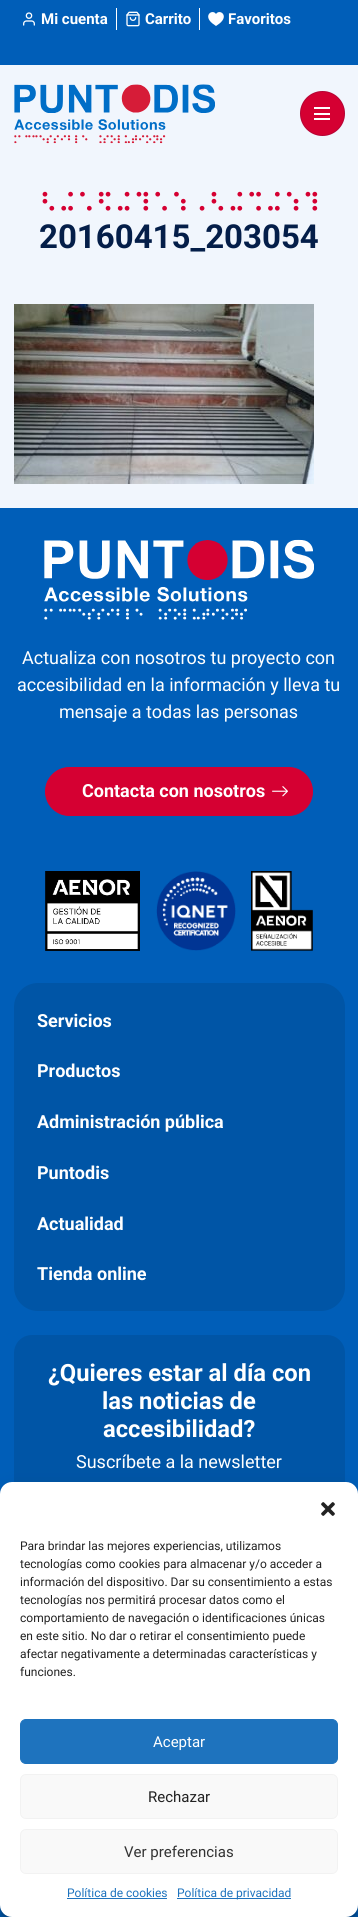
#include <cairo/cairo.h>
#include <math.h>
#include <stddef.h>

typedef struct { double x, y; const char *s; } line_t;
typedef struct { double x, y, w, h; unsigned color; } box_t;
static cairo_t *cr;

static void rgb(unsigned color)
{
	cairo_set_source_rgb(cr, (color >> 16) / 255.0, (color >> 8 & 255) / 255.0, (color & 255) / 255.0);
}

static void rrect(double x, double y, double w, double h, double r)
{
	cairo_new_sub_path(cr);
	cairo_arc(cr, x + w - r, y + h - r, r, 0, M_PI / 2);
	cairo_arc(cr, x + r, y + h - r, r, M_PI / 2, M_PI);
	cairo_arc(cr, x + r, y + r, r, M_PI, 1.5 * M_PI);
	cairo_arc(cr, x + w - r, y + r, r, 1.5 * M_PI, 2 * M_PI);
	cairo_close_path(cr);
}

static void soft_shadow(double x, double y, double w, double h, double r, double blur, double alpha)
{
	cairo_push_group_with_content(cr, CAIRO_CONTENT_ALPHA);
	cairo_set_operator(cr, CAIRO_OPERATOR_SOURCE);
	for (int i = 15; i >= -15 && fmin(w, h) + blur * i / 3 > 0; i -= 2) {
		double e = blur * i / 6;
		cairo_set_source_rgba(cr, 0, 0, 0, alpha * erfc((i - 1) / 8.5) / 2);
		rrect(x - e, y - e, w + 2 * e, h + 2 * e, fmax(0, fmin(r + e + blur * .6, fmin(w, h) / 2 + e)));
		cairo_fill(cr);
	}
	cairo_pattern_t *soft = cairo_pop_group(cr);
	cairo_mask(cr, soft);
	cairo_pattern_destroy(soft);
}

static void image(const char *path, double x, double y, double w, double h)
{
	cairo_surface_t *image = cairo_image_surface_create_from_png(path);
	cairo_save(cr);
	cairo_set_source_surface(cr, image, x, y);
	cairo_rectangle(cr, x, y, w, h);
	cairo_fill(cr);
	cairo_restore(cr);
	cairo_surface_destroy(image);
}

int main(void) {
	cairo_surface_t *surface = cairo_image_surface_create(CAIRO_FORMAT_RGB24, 358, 1917);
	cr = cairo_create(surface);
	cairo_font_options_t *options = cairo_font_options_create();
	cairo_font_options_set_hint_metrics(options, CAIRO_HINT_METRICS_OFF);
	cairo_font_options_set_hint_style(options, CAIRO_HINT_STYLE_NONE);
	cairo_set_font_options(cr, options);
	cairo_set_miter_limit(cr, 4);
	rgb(0xf1f6fd);
	cairo_paint(cr);
	rgb(0x005eb8);
	cairo_rectangle(cr, 0, 0, 358, 65);
	cairo_fill(cr);
	image("img/1.png", 23, 12, 12, 14);
	rgb(0xffffff);
	cairo_rectangle(cr, 116, 8, 1, 22);
	cairo_fill(cr);
	image("img/2.png", 126, 11, 14, 16);
	cairo_rectangle(cr, 199, 8, 1, 22);
	cairo_fill(cr);
	cairo_new_path(cr);
	cairo_move_to(cr, 216, 26);
	cairo_line_to(cr, 212.5, 23.5);
	cairo_curve_to(cr, 202.5, 15.5, 212.5, 8.5, 216, 14);
	cairo_curve_to(cr, 219.5, 8.5, 229.5, 15.5, 219.5, 23.5);
	cairo_close_path(cr);
	cairo_fill(cr);
	image("img/3.png", 14, 84, 201, 60);
	rgb(0xd50032);
	cairo_arc(cr, 322.5, 113.5, 22.5, 0, 2 * M_PI);
	cairo_fill(cr);
	cairo_arc(cr, 322.5, 113.5, 22, 0, 2 * M_PI);
	cairo_set_source_rgba(cr, 0.016, 0.118, 0.286, 0.15);
	cairo_set_line_width(cr, 1);
	cairo_stroke(cr);
	{
		static const box_t items[] = {
			{314, 113, 16, 2, 0xffffff},
			{314, 107, 16, 2, 0xffffff},
			{314, 118, 16, 2, 0xffffff},
		};
		for (size_t i = 0; i < sizeof items / sizeof *items; i++) {
			rgb(items[i].color);
			cairo_rectangle(cr, items[i].x, items[i].y, items[i].w, items[i].h);
			cairo_fill(cr);
		}
	}
	image("img/4.png", 14, 304, 300, 180);
	rgb(0x005eb8);
	cairo_rectangle(cr, 0, 508, 358, 1409);
	cairo_fill(cr);
	image("img/5.png", 44, 539, 270, 81);
	rgb(0xd50032);
	rrect(45.5, 767.5, 267, 48, 24);
	cairo_fill_preserve(cr);
	cairo_stroke(cr);
	image("img/6.png", 272, 786, 16, 11);
	image("img/7.png", 45, 871, 95, 80);
	image("img/8.png", 156, 871, 80, 80);
	image("img/9.png", 251, 871, 62, 80);
	rgb(0x0055a6);
	rrect(14, 983, 331, 328, 24);
	cairo_fill(cr);
	rrect(14, 1335, 331, 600, 18);
	cairo_fill(cr);
	rgb(0x000000);
	soft_shadow(0, 1488, 358, 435, 12, 3, 0.23);
	soft_shadow(0, 1492, 358, 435, 12, 10, 0.19);
	rgb(0xffffff);
	rrect(0, 1482, 358, 435, 12);
	cairo_fill(cr);
	image("img/10.png", 321, 1502, 14, 14);
	rgb(0x1e73be);
	rrect(20.5, 1719.5, 317, 44, 5.5);
	cairo_fill_preserve(cr);
	cairo_stroke(cr);
	rgb(0xf9f9f9);
	rrect(20.5, 1774.5, 317, 44, 5.5);
	cairo_fill_preserve(cr);
	rgb(0xf2f2f2);
	cairo_stroke(cr);
	rgb(0xf9f9f9);
	rrect(20.5, 1829.5, 317, 44, 5.5);
	cairo_fill_preserve(cr);
	rgb(0xf2f2f2);
	cairo_stroke(cr);
	rgb(0x1e73be);
	cairo_rectangle(cr, 67, 1898, 100, 1);
	cairo_fill(cr);
	cairo_rectangle(cr, 177, 1898, 114, 1);
	cairo_fill(cr);
	cairo_select_font_face(cr, "Roboto", CAIRO_FONT_SLANT_NORMAL, CAIRO_FONT_WEIGHT_BOLD);
	cairo_set_font_size(cr, 15);
	rgb(0xffffff);
	{
		static const line_t items[] = {
			{41, 24, "Mi cuenta"},
			{145, 24, "Carrito"},
			{228, 24, "Favoritos"},
		};
		for (size_t i = 0; i < sizeof items / sizeof *items; i++) {
			cairo_move_to(cr, items[i].x, items[i].y);
			cairo_show_text(cr, items[i].s);
		}
	}
	cairo_select_font_face(cr, "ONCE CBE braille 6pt", CAIRO_FONT_SLANT_NORMAL, CAIRO_FONT_WEIGHT_NORMAL);
	cairo_set_font_size(cr, 26);
	rgb(0xd50032);
	cairo_move_to(cr, 39, 209);
	cairo_show_text(cr, "20160415_203054");
	cairo_select_font_face(cr, "Roboto", CAIRO_FONT_SLANT_NORMAL, CAIRO_FONT_WEIGHT_BOLD);
	cairo_set_font_size(cr, 33);
	rgb(0x041e49);
	cairo_move_to(cr, 39, 248);
	cairo_show_text(cr, "20160415_203054");
	cairo_select_font_face(cr, "Roboto", CAIRO_FONT_SLANT_NORMAL, CAIRO_FONT_WEIGHT_NORMAL);
	cairo_set_font_size(cr, 18);
	rgb(0xffffff);
	{
		static const line_t items[] = {
			{22, 664, "Actualiza con nosotros tu proyecto con"},
			{17, 691, "accesibilidad en la información y lleva tu"},
			{59, 718, "mensaje a todas las personas"},
		};
		for (size_t i = 0; i < sizeof items / sizeof *items; i++) {
			cairo_move_to(cr, items[i].x, items[i].y);
			cairo_show_text(cr, items[i].s);
		}
	}
	cairo_select_font_face(cr, "Roboto", CAIRO_FONT_SLANT_NORMAL, CAIRO_FONT_WEIGHT_BOLD);
	{
		static const line_t items[] = {
			{82, 797, "Contacta con nosotros"},
			{37, 1027, "Servicios"},
			{37, 1077, "Productos"},
			{37, 1128, "Administración pública"},
			{37, 1179, "Puntodis"},
			{37, 1230, "Actualidad"},
			{37, 1280, "Tienda online"},
		};
		for (size_t i = 0; i < sizeof items / sizeof *items; i++) {
			cairo_move_to(cr, items[i].x, items[i].y);
			cairo_show_text(cr, items[i].s);
		}
	}
	cairo_set_font_size(cr, 23.75);
	{
		static const line_t items[] = {
			{48, 1381, "¿Quieres estar al día con"},
			{102, 1409, "las noticias de"},
			{103, 1437, "accesibilidad?"},
		};
		for (size_t i = 0; i < sizeof items / sizeof *items; i++) {
			cairo_move_to(cr, items[i].x, items[i].y);
			cairo_show_text(cr, items[i].s);
		}
	}
	cairo_select_font_face(cr, "Roboto", CAIRO_FONT_SLANT_NORMAL, CAIRO_FONT_WEIGHT_NORMAL);
	cairo_set_font_size(cr, 18);
	cairo_move_to(cr, 76, 1468);
	cairo_show_text(cr, "Suscríbete a la newsletter");
	cairo_set_font_size(cr, 12);
	rgb(0x222222);
	{
		static const line_t items[] = {
			{20, 1550, "Para brindar las mejores experiencias, utilizamos"},
			{20, 1568, "tecnologías como cookies para almacenar y/o acceder a"},
			{20, 1586, "información del dispositivo. Dar su consentimiento a estas"},
			{20, 1604, "tecnologías nos permitirá procesar datos como el"},
			{20, 1622, "comportamiento de navegación o identificaciones únicas"},
			{20, 1640, "en este sitio. No dar o retirar el consentimiento puede"},
			{20, 1658, "afectar negativamente a determinadas características y"},
			{20, 1676, "funciones."},
		};
		for (size_t i = 0; i < sizeof items / sizeof *items; i++) {
			cairo_move_to(cr, items[i].x, items[i].y);
			cairo_show_text(cr, items[i].s);
		}
	}
	cairo_set_font_size(cr, 15);
	rgb(0xffffff);
	cairo_move_to(cr, 153, 1747);
	cairo_show_text(cr, "Aceptar");
	rgb(0x222222);
	cairo_move_to(cr, 148, 1802);
	cairo_show_text(cr, "Rechazar");
	rgb(0x333333);
	cairo_move_to(cr, 124, 1857);
	cairo_show_text(cr, "Ver preferencias");
	cairo_set_font_size(cr, 12);
	rgb(0x1e73be);
	cairo_move_to(cr, 67, 1897);
	cairo_show_text(cr, "Política de cookies");
	cairo_move_to(cr, 177, 1897);
	cairo_show_text(cr, "Política de privacidad");
	cairo_surface_write_to_png(surface, "page.png");
	cairo_font_options_destroy(options);
	cairo_destroy(cr);
	cairo_surface_destroy(surface);
	return 0;
}
